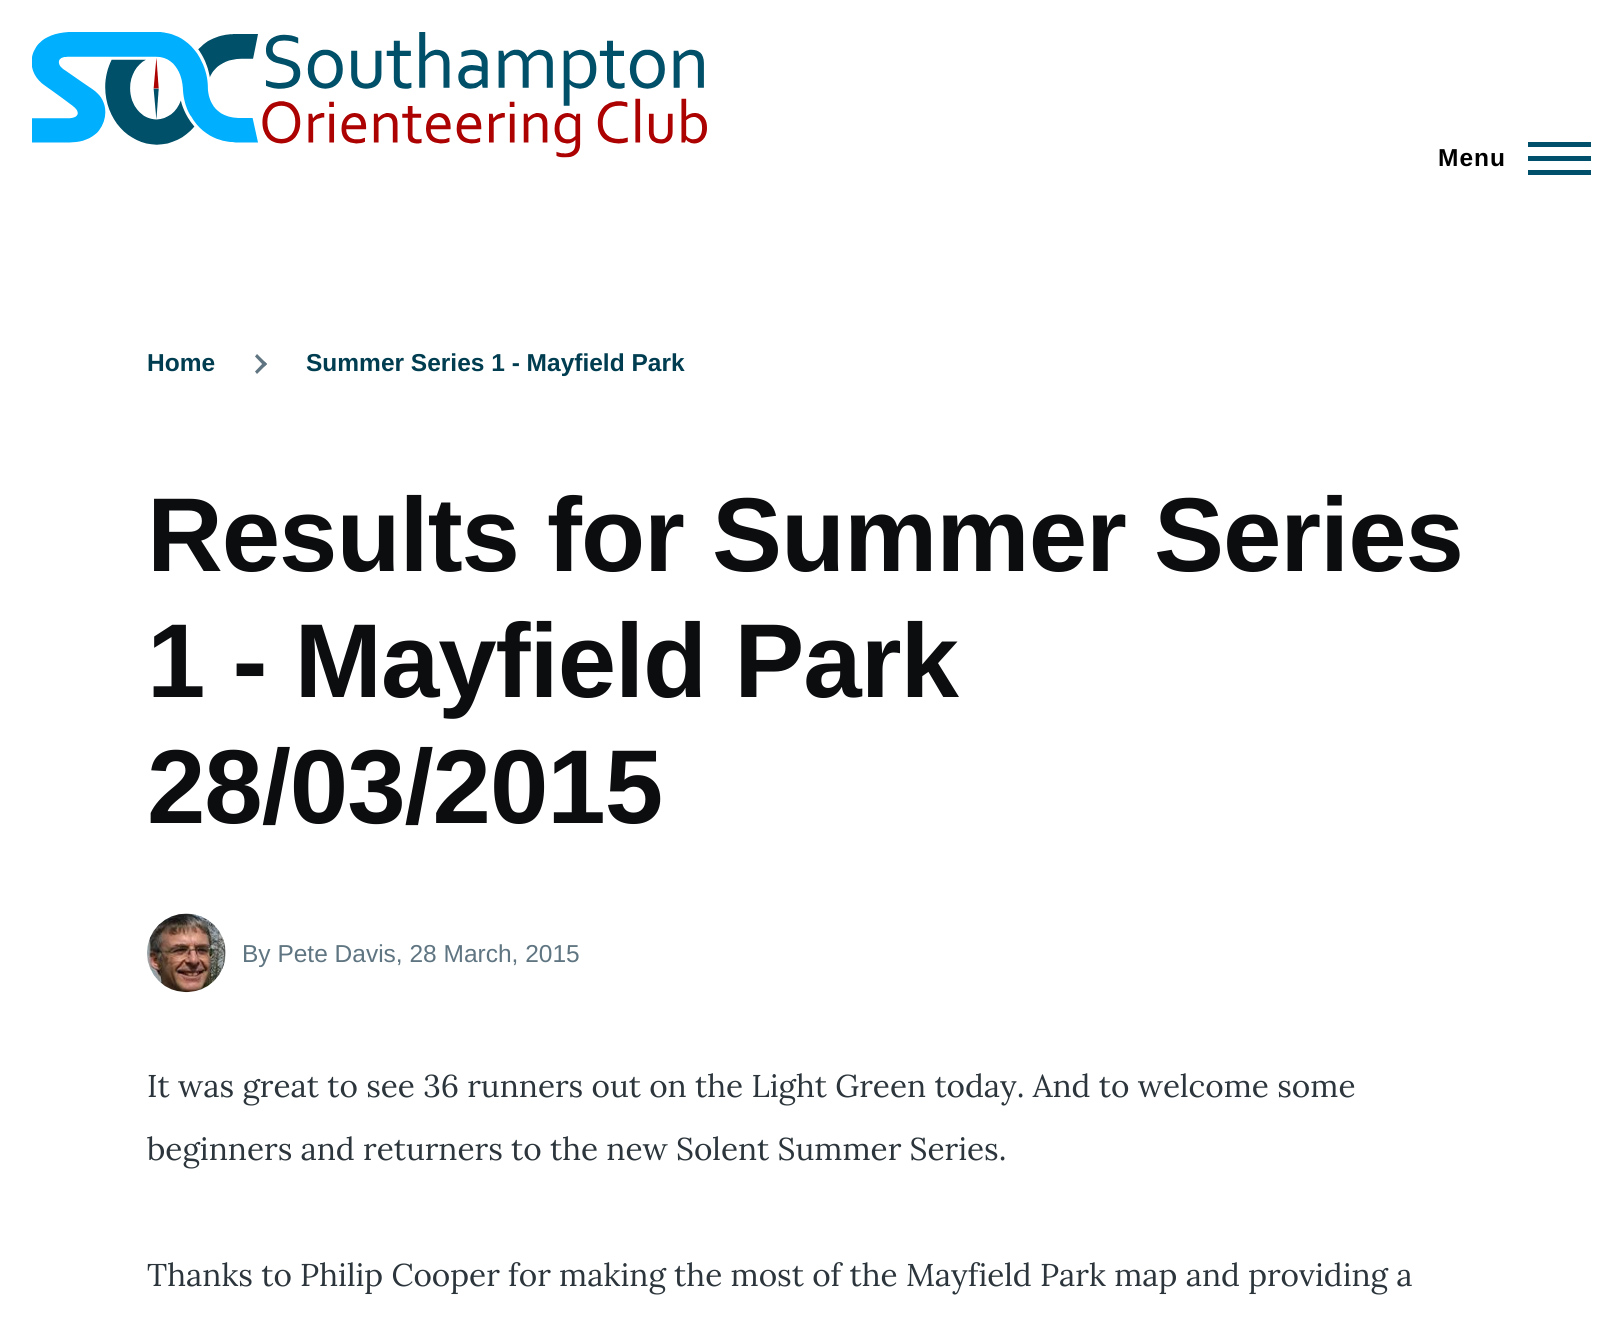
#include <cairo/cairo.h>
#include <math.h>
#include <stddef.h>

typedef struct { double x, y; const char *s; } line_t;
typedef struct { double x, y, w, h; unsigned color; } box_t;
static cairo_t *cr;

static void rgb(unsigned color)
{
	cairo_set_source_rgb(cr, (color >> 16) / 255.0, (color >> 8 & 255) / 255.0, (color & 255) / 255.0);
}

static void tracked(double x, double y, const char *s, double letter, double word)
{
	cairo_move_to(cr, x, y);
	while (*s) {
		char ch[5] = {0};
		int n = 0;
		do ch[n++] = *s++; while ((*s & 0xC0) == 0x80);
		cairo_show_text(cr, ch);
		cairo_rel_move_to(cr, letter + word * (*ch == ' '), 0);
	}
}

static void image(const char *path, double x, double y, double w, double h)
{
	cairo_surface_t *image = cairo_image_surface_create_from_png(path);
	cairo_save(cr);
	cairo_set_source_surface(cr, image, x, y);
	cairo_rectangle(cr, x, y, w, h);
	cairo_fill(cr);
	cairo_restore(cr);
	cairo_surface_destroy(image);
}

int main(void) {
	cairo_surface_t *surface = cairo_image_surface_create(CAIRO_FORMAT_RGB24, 1622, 1328);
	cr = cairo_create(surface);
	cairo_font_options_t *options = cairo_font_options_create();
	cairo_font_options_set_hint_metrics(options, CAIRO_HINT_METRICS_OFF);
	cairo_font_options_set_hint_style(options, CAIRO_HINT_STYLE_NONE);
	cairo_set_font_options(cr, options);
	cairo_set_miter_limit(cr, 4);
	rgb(0xffffff);
	cairo_paint(cr);
	image("img/1.png", 32, 32, 675, 126);
	{
		static const box_t items[] = {
			{1528, 156, 63, 5, 0x00506b},
			{1528, 142, 63, 5, 0x00506b},
			{1528, 170, 63, 5, 0x00506b},
		};
		for (size_t i = 0; i < sizeof items / sizeof *items; i++) {
			rgb(items[i].color);
			cairo_rectangle(cr, items[i].x, items[i].y, items[i].w, items[i].h);
			cairo_fill(cr);
		}
	}
	rgb(0x5f7581);
	cairo_new_path(cr);
	cairo_move_to(cr, 257, 354);
	cairo_line_to(cr, 267, 364);
	cairo_line_to(cr, 264.5, 366.5);
	cairo_line_to(cr, 255, 356.5);
	cairo_close_path(cr);
	cairo_fill(cr);
	cairo_new_path(cr);
	cairo_move_to(cr, 264.5, 361.5);
	cairo_line_to(cr, 267, 364);
	cairo_line_to(cr, 257, 374);
	cairo_line_to(cr, 255, 371.5);
	cairo_close_path(cr);
	cairo_fill(cr);
	image("img/2.png", 147, 913, 79, 80);
	cairo_select_font_face(cr, "Liberation Sans", CAIRO_FONT_SLANT_NORMAL, CAIRO_FONT_WEIGHT_BOLD);
	cairo_set_font_size(cr, 24.5);
	rgb(0x000000);
	tracked(1438, 166, "Menu", 1, 0);
	rgb(0x003d51);
	cairo_move_to(cr, 147, 371);
	cairo_show_text(cr, "Home");
	cairo_move_to(cr, 306, 371);
	cairo_show_text(cr, "Summer Series 1 - Mayfield Park");
	cairo_set_font_size(cr, 105);
	rgb(0x0b0d0f);
	{
		static const line_t items[] = {
			{147, 571, "Results for Summer Series"},
			{147, 697, "1 - Mayfield Park"},
			{147, 823, "28/03/2015"},
		};
		for (size_t i = 0; i < sizeof items / sizeof *items; i++) {
			tracked(items[i].x, items[i].y, items[i].s, -1.05, 0);
		}
	}
	cairo_select_font_face(cr, "Liberation Sans", CAIRO_FONT_SLANT_NORMAL, CAIRO_FONT_WEIGHT_NORMAL);
	cairo_set_font_size(cr, 24.5);
	rgb(0x5f7581);
	cairo_move_to(cr, 242, 962);
	cairo_show_text(cr, "By Pete Davis, 28 March, 2015");
	cairo_select_font_face(cr, "Lora", CAIRO_FONT_SLANT_NORMAL, CAIRO_FONT_WEIGHT_NORMAL);
	cairo_set_font_size(cr, 31.5);
	rgb(0x2b353b);
	{
		static const line_t items[] = {
			{147, 1097, "It was great to see 36 runners out on the Light Green today. And to welcome some"},
			{147, 1160, "beginners and returners to the new Solent Summer Series."},
			{147, 1286, "Thanks to Philip Cooper for making the most of the Mayfield Park map and providing a"},
		};
		for (size_t i = 0; i < sizeof items / sizeof *items; i++) {
			cairo_move_to(cr, items[i].x, items[i].y);
			cairo_show_text(cr, items[i].s);
		}
	}
	cairo_surface_write_to_png(surface, "page.png");
	cairo_font_options_destroy(options);
	cairo_destroy(cr);
	cairo_surface_destroy(surface);
	return 0;
}
